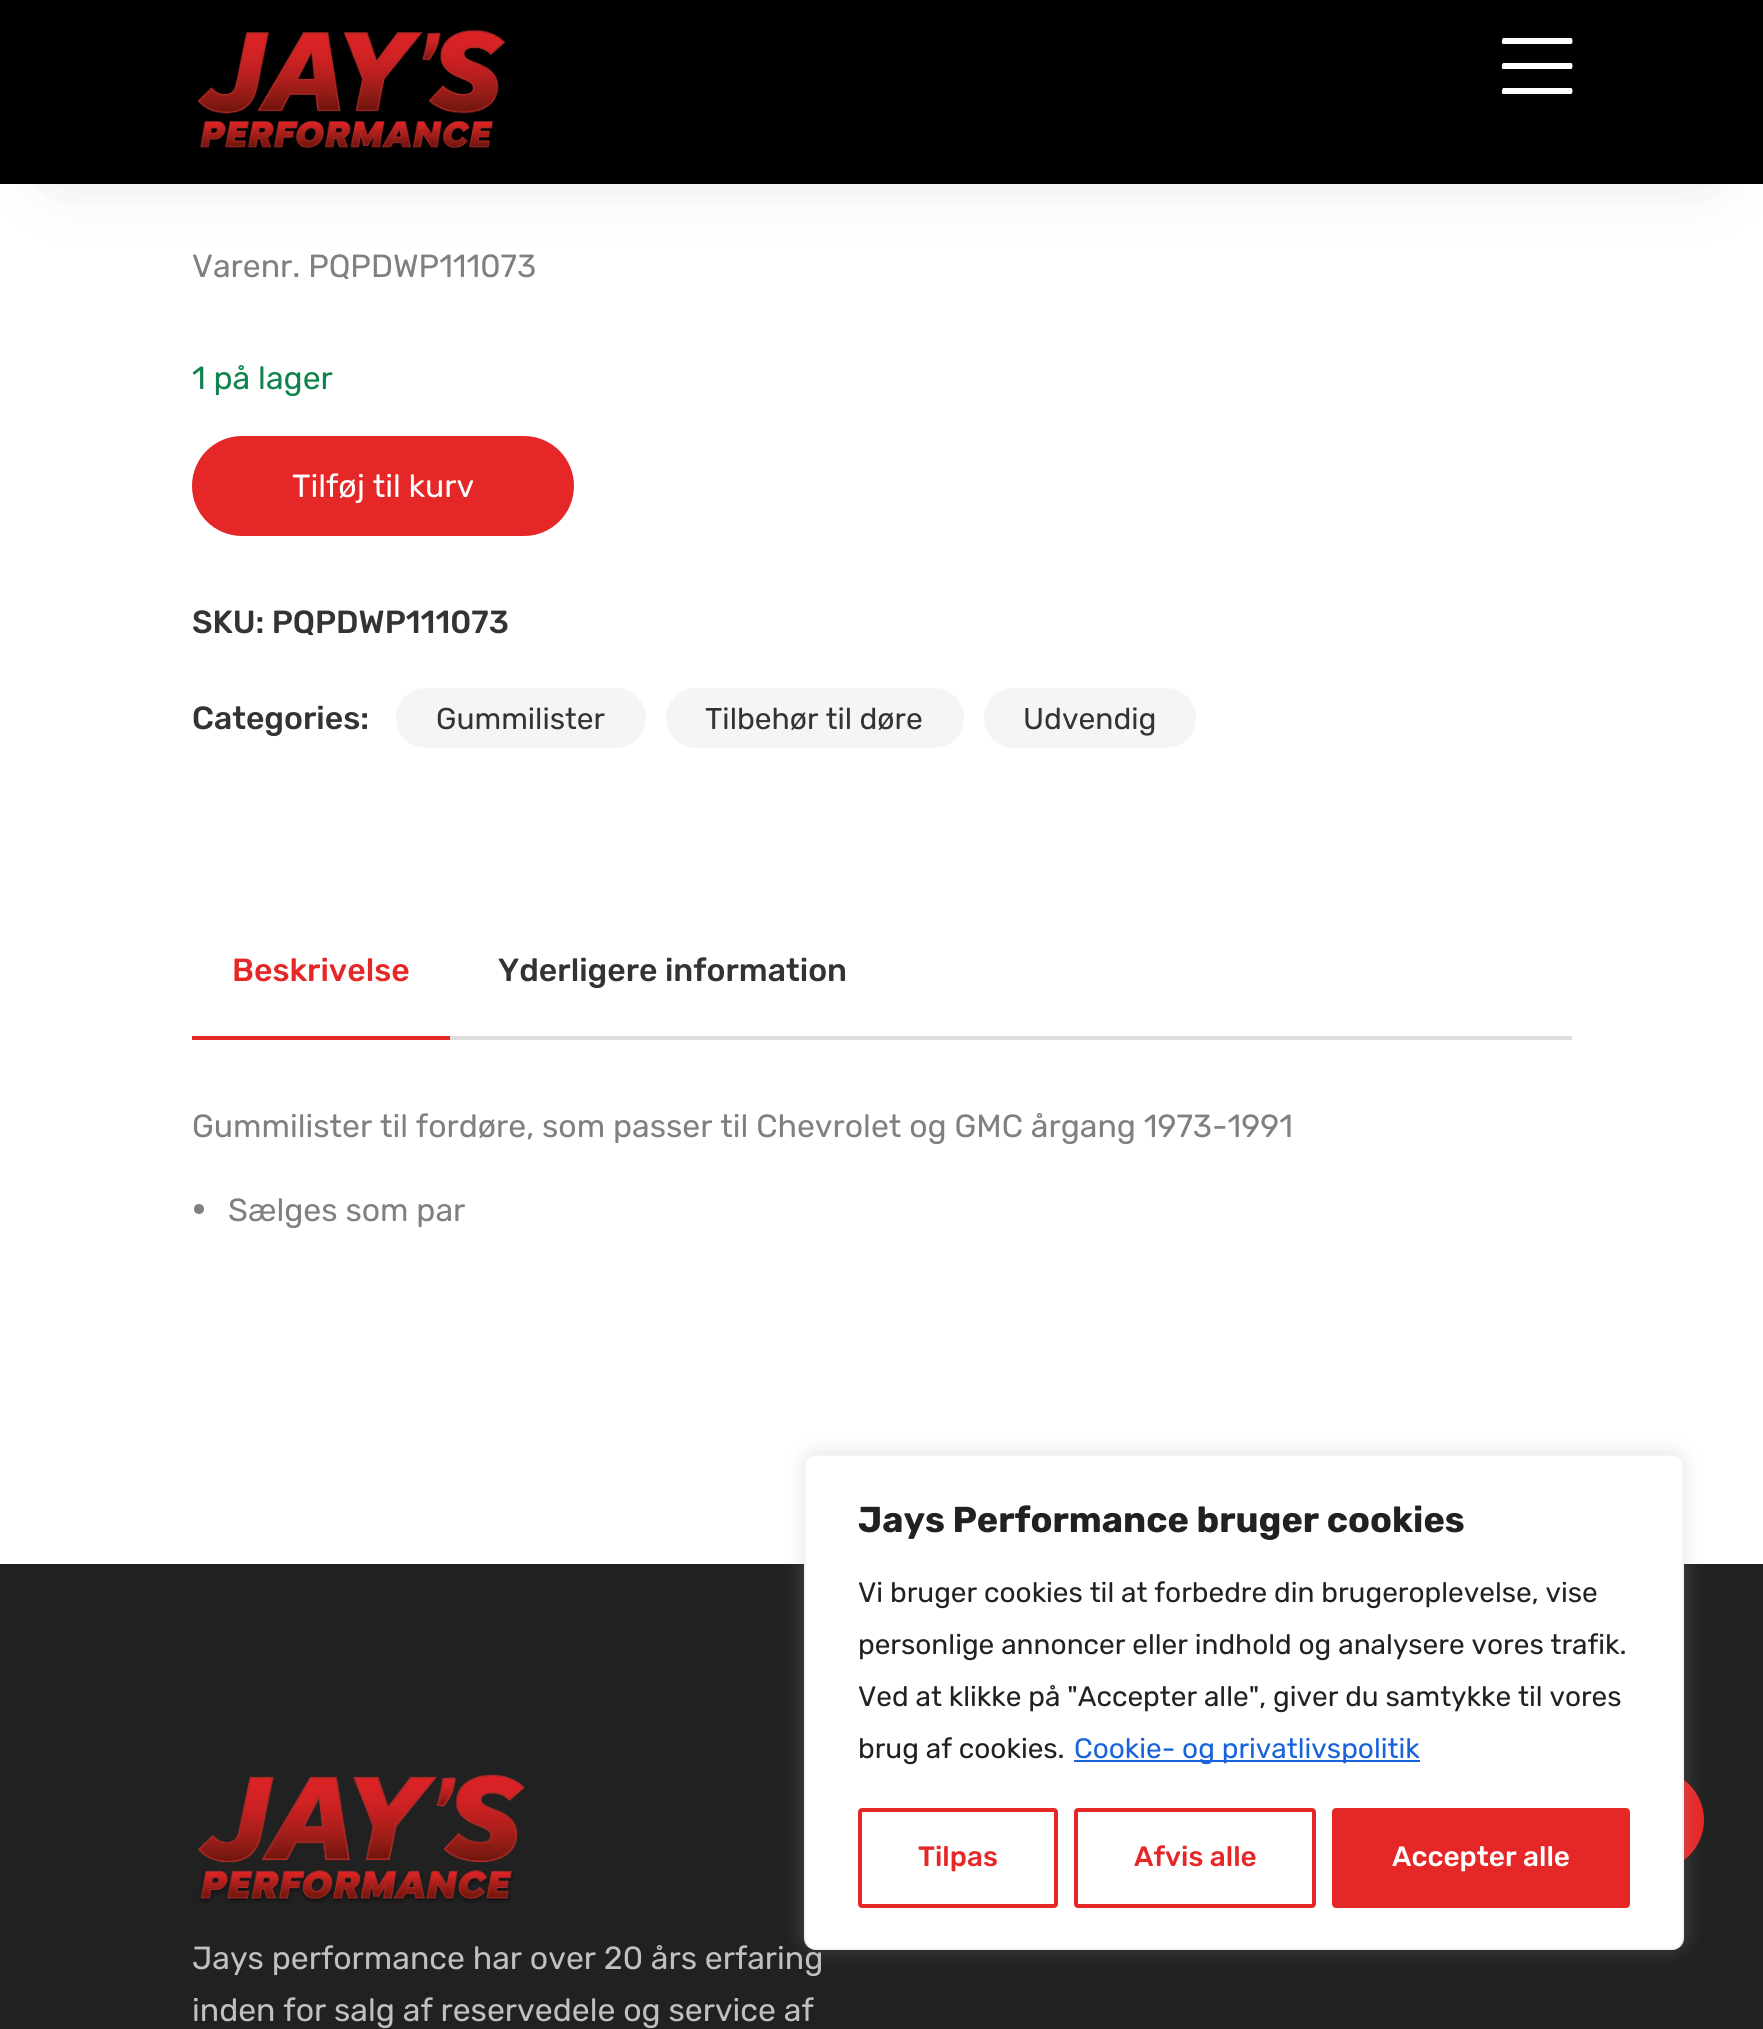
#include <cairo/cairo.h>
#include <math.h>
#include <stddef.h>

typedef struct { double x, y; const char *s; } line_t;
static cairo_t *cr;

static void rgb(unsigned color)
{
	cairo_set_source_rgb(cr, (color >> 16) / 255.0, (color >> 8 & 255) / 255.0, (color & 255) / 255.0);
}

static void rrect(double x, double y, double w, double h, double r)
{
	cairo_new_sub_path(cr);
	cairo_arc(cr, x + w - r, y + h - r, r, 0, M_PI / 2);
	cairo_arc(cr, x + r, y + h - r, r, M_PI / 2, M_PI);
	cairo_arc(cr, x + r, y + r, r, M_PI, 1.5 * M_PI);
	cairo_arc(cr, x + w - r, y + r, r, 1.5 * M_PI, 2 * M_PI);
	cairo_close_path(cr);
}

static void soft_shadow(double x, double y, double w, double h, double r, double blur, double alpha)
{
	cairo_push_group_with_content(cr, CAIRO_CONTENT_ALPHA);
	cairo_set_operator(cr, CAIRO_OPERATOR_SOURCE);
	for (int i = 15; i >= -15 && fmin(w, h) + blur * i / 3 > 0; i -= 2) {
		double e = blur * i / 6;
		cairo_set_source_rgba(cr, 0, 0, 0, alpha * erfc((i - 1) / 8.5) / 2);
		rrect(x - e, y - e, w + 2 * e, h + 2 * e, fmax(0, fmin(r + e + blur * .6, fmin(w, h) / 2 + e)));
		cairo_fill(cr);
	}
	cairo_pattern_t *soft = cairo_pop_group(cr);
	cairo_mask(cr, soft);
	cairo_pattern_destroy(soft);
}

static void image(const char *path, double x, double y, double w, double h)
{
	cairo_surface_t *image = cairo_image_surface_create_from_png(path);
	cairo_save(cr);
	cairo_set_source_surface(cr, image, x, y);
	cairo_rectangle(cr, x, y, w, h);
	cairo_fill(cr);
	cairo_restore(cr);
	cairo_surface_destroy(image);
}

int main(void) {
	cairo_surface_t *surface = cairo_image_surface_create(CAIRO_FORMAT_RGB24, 1763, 2029);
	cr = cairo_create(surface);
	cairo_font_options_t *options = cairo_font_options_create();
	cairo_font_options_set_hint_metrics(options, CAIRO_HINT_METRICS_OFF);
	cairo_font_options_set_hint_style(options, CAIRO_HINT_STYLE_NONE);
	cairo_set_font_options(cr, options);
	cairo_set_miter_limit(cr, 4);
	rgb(0xffffff);
	cairo_paint(cr);
	rgb(0x23263a);
	soft_shadow(60, 96, 1644, 64, 0, 40, 0.21);
	rgb(0x000000);
	cairo_rectangle(cr, 0, 0, 1763, 184);
	cairo_fill(cr);
	image("img/1.png", 197, 29, 309, 119);
	rgb(0xffffff);
	cairo_new_path(cr);
	cairo_move_to(cr, 1571, 44);
	cairo_line_to(cr, 1503, 44);
	cairo_curve_to(cr, 1501, 44, 1502, 39, 1503, 38);
	cairo_line_to(cr, 1571, 38);
	cairo_curve_to(cr, 1573, 38, 1573, 44, 1571, 44);
	cairo_close_path(cr);
	cairo_move_to(cr, 1571, 69);
	cairo_line_to(cr, 1503, 69);
	cairo_curve_to(cr, 1501, 69, 1502, 64, 1503, 63);
	cairo_line_to(cr, 1571, 63);
	cairo_curve_to(cr, 1573, 63, 1573, 69, 1571, 69);
	cairo_close_path(cr);
	cairo_move_to(cr, 1571, 94);
	cairo_line_to(cr, 1503, 94);
	cairo_curve_to(cr, 1501, 94, 1502, 89, 1503, 88);
	cairo_line_to(cr, 1571, 88);
	cairo_curve_to(cr, 1573, 88, 1573, 94, 1571, 94);
	cairo_close_path(cr);
	cairo_fill(cr);
	rgb(0xe52727);
	rrect(192, 436, 382, 100, 50);
	cairo_fill(cr);
	rgb(0xf5f5f5);
	rrect(396, 688, 250, 60, 30);
	cairo_fill(cr);
	rrect(666, 688, 298, 60, 30);
	cairo_fill(cr);
	rrect(984, 688, 212, 60, 30);
	cairo_fill(cr);
	rgb(0xdddddd);
	cairo_rectangle(cr, 450, 1036, 1122, 4);
	cairo_fill(cr);
	rgb(0xe52727);
	cairo_rectangle(cr, 192, 1036, 258, 4);
	cairo_fill(cr);
	rgb(0x808080);
	cairo_arc(cr, 199, 1209, 5, 0, 2 * M_PI);
	cairo_fill(cr);
	rgb(0x212121);
	cairo_rectangle(cr, 0, 1564, 1763, 465);
	cairo_fill(cr);
	rgb(0xe52727);
	cairo_arc(cr, 1654, 1820, 50, 0, 2 * M_PI);
	cairo_fill(cr);
	rgb(0xacabab);
	soft_shadow(804, 1452, 880, 496, 12, 10, 0.3);
	image("img/2.png", 197, 1774, 328, 129);
	cairo_select_font_face(cr, "Rubik Light", CAIRO_FONT_SLANT_NORMAL, CAIRO_FONT_WEIGHT_NORMAL);
	cairo_set_font_size(cr, 32);
	rgb(0x808080);
	cairo_move_to(cr, 192, 277);
	cairo_show_text(cr, "Varenr. PQPDWP111073");
	rgb(0x0f834d);
	cairo_move_to(cr, 192, 389);
	cairo_show_text(cr, "1 på lager");
	rgb(0xffffff);
	cairo_move_to(cr, 292, 497);
	cairo_show_text(cr, "Tilføj til kurv");
	cairo_select_font_face(cr, "Rubik Medium", CAIRO_FONT_SLANT_NORMAL, CAIRO_FONT_WEIGHT_NORMAL);
	rgb(0x333333);
	cairo_move_to(cr, 192, 633);
	cairo_show_text(cr, "SKU: PQPDWP111073");
	cairo_move_to(cr, 192, 729);
	cairo_show_text(cr, "Categories:");
	cairo_select_font_face(cr, "Rubik Light", CAIRO_FONT_SLANT_NORMAL, CAIRO_FONT_WEIGHT_NORMAL);
	cairo_set_font_size(cr, 30);
	{
		static const line_t items[] = {
			{436, 729, "Gummilister"},
			{705, 729, "Tilbehør til døre"},
			{1023, 729, "Udvendig"},
		};
		for (size_t i = 0; i < sizeof items / sizeof *items; i++) {
			cairo_move_to(cr, items[i].x, items[i].y);
			cairo_show_text(cr, items[i].s);
		}
	}
	cairo_select_font_face(cr, "Rubik Medium", CAIRO_FONT_SLANT_NORMAL, CAIRO_FONT_WEIGHT_NORMAL);
	cairo_set_font_size(cr, 32);
	rgb(0xe52727);
	cairo_move_to(cr, 232, 981);
	cairo_show_text(cr, "Beskrivelse");
	rgb(0x333333);
	cairo_move_to(cr, 498, 981);
	cairo_show_text(cr, "Yderligere information");
	cairo_select_font_face(cr, "Rubik Light", CAIRO_FONT_SLANT_NORMAL, CAIRO_FONT_WEIGHT_NORMAL);
	rgb(0x808080);
	cairo_move_to(cr, 192, 1137);
	cairo_show_text(cr, "Gummilister til fordøre, som passer til Chevrolet og GMC årgang 1973-1991");
	cairo_move_to(cr, 228, 1221);
	cairo_show_text(cr, "Sælges som par");
	rgb(0xc0c0c0);
	cairo_move_to(cr, 192, 1969);
	cairo_show_text(cr, "Jays performance har over 20 års erfaring");
	rgb(0xffffff);
	rrect(805, 1455, 878, 494, 11);
	cairo_fill_preserve(cr);
	rgb(0xf4f4f4);
	cairo_stroke(cr);
	rgb(0xe52727);
	rrect(1334, 1810, 294, 96, 2);
	cairo_fill_preserve(cr);
	cairo_set_line_width(cr, 4);
	cairo_stroke(cr);
	cairo_select_font_face(cr, "Rubik Medium", CAIRO_FONT_SLANT_NORMAL, CAIRO_FONT_WEIGHT_NORMAL);
	cairo_set_font_size(cr, 28);
	rgb(0xffffff);
	cairo_move_to(cr, 1392, 1866);
	cairo_show_text(cr, "Accepter alle");
	rrect(1076, 1810, 238, 96, 2);
	rgb(0xe52727);
	cairo_stroke(cr);
	cairo_move_to(cr, 1134, 1866);
	cairo_show_text(cr, "Afvis alle");
	rrect(860, 1810, 196, 96, 2);
	cairo_stroke(cr);
	cairo_move_to(cr, 918, 1866);
	cairo_show_text(cr, "Tilpas");
	rgb(0x1863dc);
	cairo_rectangle(cr, 1074, 1760, 346, 2);
	cairo_fill(cr);
	cairo_select_font_face(cr, "Rubik Light", CAIRO_FONT_SLANT_NORMAL, CAIRO_FONT_WEIGHT_NORMAL);
	cairo_move_to(cr, 1074, 1758);
	cairo_show_text(cr, "Cookie- og privatlivspolitik");
	rgb(0x212121);
	{
		static const line_t items[] = {
			{858, 1758, "brug af cookies."},
			{858, 1706, "Ved at klikke på \"Accepter alle\", giver du samtykke til vores"},
			{858, 1654, "personlige annoncer eller indhold og analysere vores trafik."},
			{858, 1602, "Vi bruger cookies til at forbedre din brugeroplevelse, vise"},
		};
		for (size_t i = 0; i < sizeof items / sizeof *items; i++) {
			cairo_move_to(cr, items[i].x, items[i].y);
			cairo_show_text(cr, items[i].s);
		}
	}
	cairo_select_font_face(cr, "Rubik", CAIRO_FONT_SLANT_NORMAL, CAIRO_FONT_WEIGHT_BOLD);
	cairo_set_font_size(cr, 36);
	cairo_move_to(cr, 858, 1532);
	cairo_show_text(cr, "Jays Performance bruger cookies");
	cairo_select_font_face(cr, "Rubik Light", CAIRO_FONT_SLANT_NORMAL, CAIRO_FONT_WEIGHT_NORMAL);
	cairo_set_font_size(cr, 32);
	rgb(0xc0c0c0);
	cairo_move_to(cr, 192, 2021);
	cairo_show_text(cr, "inden for salg af reservedele og service af");
	cairo_surface_write_to_png(surface, "page.png");
	cairo_font_options_destroy(options);
	cairo_destroy(cr);
	cairo_surface_destroy(surface);
	return 0;
}
